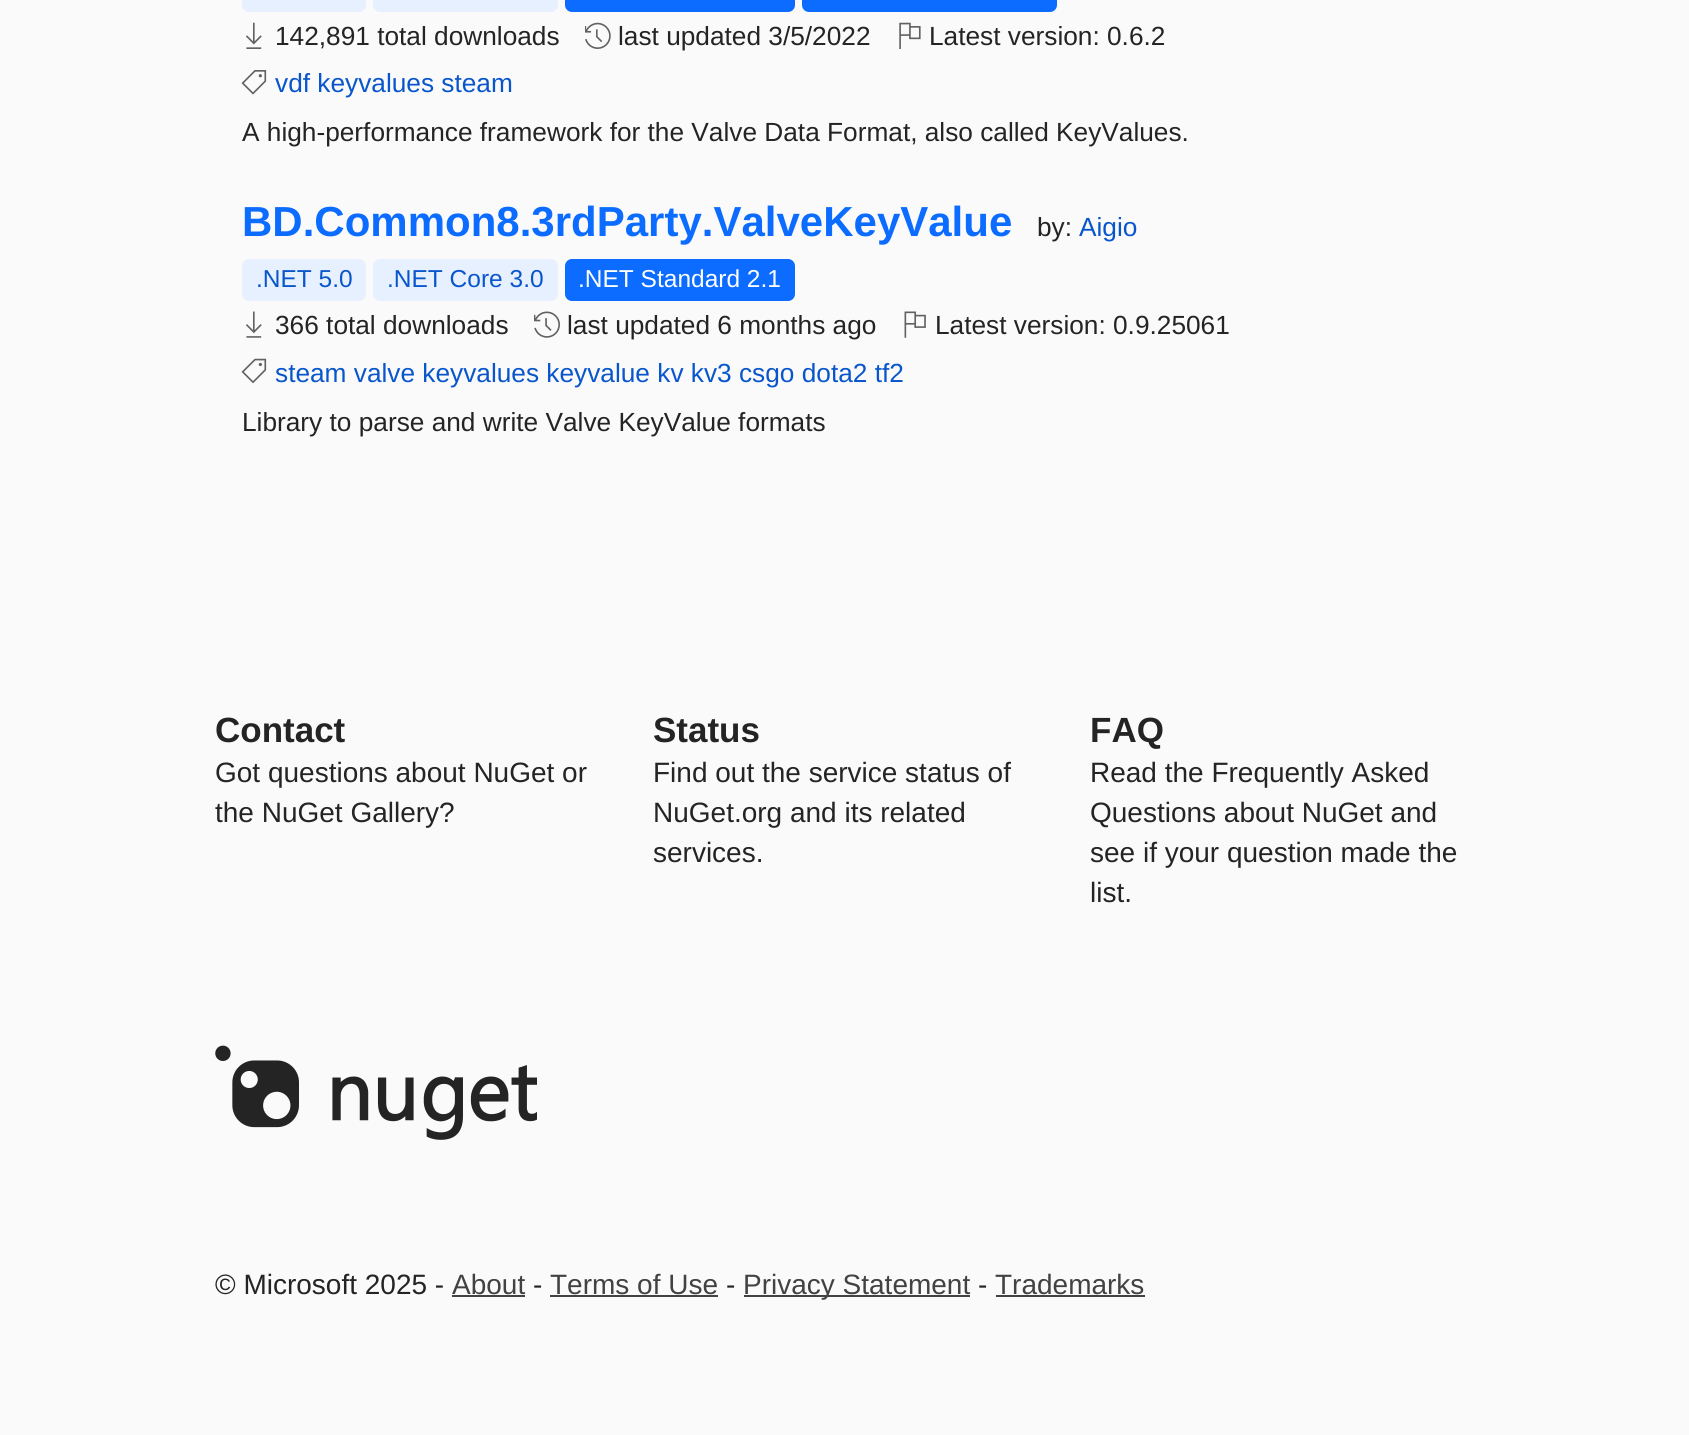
#include <cairo/cairo.h>
#include <math.h>
#include <stddef.h>

typedef struct { double x, y; const char *s; } line_t;
typedef struct { double x, y, w, h; unsigned color; } box_t;
static cairo_t *cr;

static void rgb(unsigned color)
{
	cairo_set_source_rgb(cr, (color >> 16) / 255.0, (color >> 8 & 255) / 255.0, (color & 255) / 255.0);
}

static void rrect(double x, double y, double w, double h, double r)
{
	cairo_new_sub_path(cr);
	cairo_arc(cr, x + w - r, y + h - r, r, 0, M_PI / 2);
	cairo_arc(cr, x + r, y + h - r, r, M_PI / 2, M_PI);
	cairo_arc(cr, x + r, y + r, r, M_PI, 1.5 * M_PI);
	cairo_arc(cr, x + w - r, y + r, r, 1.5 * M_PI, 2 * M_PI);
	cairo_close_path(cr);
}

static void image(const char *path, double x, double y, double w, double h)
{
	cairo_surface_t *image = cairo_image_surface_create_from_png(path);
	cairo_save(cr);
	cairo_set_source_surface(cr, image, x, y);
	cairo_rectangle(cr, x, y, w, h);
	cairo_fill(cr);
	cairo_restore(cr);
	cairo_surface_destroy(image);
}

int main(void) {
	cairo_surface_t *surface = cairo_image_surface_create(CAIRO_FORMAT_RGB24, 1689, 1435);
	cr = cairo_create(surface);
	cairo_font_options_t *options = cairo_font_options_create();
	cairo_font_options_set_hint_metrics(options, CAIRO_HINT_METRICS_OFF);
	cairo_font_options_set_hint_style(options, CAIRO_HINT_STYLE_NONE);
	cairo_set_font_options(cr, options);
	cairo_set_miter_limit(cr, 4);
	rgb(0xfafafa);
	cairo_paint(cr);
	rgb(0xe7f0ff);
	rrect(242, -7, 124, 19, 7);
	cairo_fill(cr);
	rrect(373, -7, 185, 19, 7);
	cairo_fill(cr);
	rgb(0x0b6cff);
	rrect(565, -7, 230, 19, 7);
	cairo_fill(cr);
	rrect(802, -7, 255, 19, 7);
	cairo_fill(cr);
	image("img/1.png", 246, 22, 16, 27);
	image("img/2.png", 585, 22, 26, 27);
	image("img/3.png", 899, 22, 22, 27);
	image("img/4.png", 241, 70, 26, 25);
	rgb(0xe7f0ff);
	rrect(242, 259, 124, 42, 7);
	cairo_fill(cr);
	rrect(373, 259, 185, 42, 7);
	cairo_fill(cr);
	rgb(0x0b6cff);
	rrect(565, 259, 230, 42, 7);
	cairo_fill(cr);
	image("img/5.png", 246, 311, 16, 27);
	image("img/6.png", 534, 311, 26, 27);
	image("img/7.png", 904, 311, 22, 27);
	image("img/8.png", 241, 358, 26, 26);
	image("img/9.png", 215, 1045, 322, 95);
	{
		static const box_t items[] = {
			{452, 1295, 73, 2, 0x424242},
			{550, 1295, 168, 2, 0x424242},
			{744, 1295, 226, 2, 0x424242},
			{996, 1295, 149, 2, 0x424242},
		};
		for (size_t i = 0; i < sizeof items / sizeof *items; i++) {
			rgb(items[i].color);
			cairo_rectangle(cr, items[i].x, items[i].y, items[i].w, items[i].h);
			cairo_fill(cr);
		}
	}
	cairo_select_font_face(cr, "Liberation Sans", CAIRO_FONT_SLANT_NORMAL, CAIRO_FONT_WEIGHT_NORMAL);
	cairo_set_font_size(cr, 26.25);
	rgb(0x242424);
	{
		static const line_t items[] = {
			{275, 45, "142,891 total downloads"},
			{618, 45, "last updated 3/5/2022"},
			{929, 45, "Latest version: 0.6.2"},
		};
		for (size_t i = 0; i < sizeof items / sizeof *items; i++) {
			cairo_move_to(cr, items[i].x, items[i].y);
			cairo_show_text(cr, items[i].s);
		}
	}
	rgb(0x0956cc);
	cairo_move_to(cr, 275, 92);
	cairo_show_text(cr, "vdf keyvalues steam");
	rgb(0x242424);
	cairo_move_to(cr, 242, 141);
	cairo_show_text(cr, "A high-performance framework for the Valve Data Format, also called KeyValues.");
	cairo_select_font_face(cr, "Liberation Sans", CAIRO_FONT_SLANT_NORMAL, CAIRO_FONT_WEIGHT_BOLD);
	cairo_set_font_size(cr, 42);
	rgb(0x0b6cff);
	cairo_move_to(cr, 242, 236);
	cairo_show_text(cr, "BD.Common8.3rdParty.ValveKeyValue");
	cairo_select_font_face(cr, "Liberation Sans", CAIRO_FONT_SLANT_NORMAL, CAIRO_FONT_WEIGHT_NORMAL);
	cairo_set_font_size(cr, 26.25);
	rgb(0x242424);
	cairo_move_to(cr, 1037, 236);
	cairo_show_text(cr, "by:");
	rgb(0x0956cc);
	cairo_move_to(cr, 1079, 236);
	cairo_show_text(cr, "Aigio");
	cairo_set_font_size(cr, 24.5);
	cairo_move_to(cr, 256, 287);
	cairo_show_text(cr, ".NET 5.0");
	cairo_move_to(cr, 387, 287);
	cairo_show_text(cr, ".NET Core 3.0");
	rgb(0xffffff);
	cairo_move_to(cr, 578, 287);
	cairo_show_text(cr, ".NET Standard 2.1");
	cairo_set_font_size(cr, 26.25);
	rgb(0x242424);
	{
		static const line_t items[] = {
			{275, 334, "366 total downloads"},
			{567, 334, "last updated 6 months ago"},
			{935, 334, "Latest version: 0.9.25061"},
		};
		for (size_t i = 0; i < sizeof items / sizeof *items; i++) {
			cairo_move_to(cr, items[i].x, items[i].y);
			cairo_show_text(cr, items[i].s);
		}
	}
	rgb(0x0956cc);
	cairo_move_to(cr, 275, 382);
	cairo_show_text(cr, "steam valve keyvalues keyvalue kv kv3 csgo dota2 tf2");
	rgb(0x242424);
	cairo_move_to(cr, 242, 431);
	cairo_show_text(cr, "Library to parse and write Valve KeyValue formats");
	cairo_select_font_face(cr, "Liberation Sans", CAIRO_FONT_SLANT_NORMAL, CAIRO_FONT_WEIGHT_BOLD);
	cairo_set_font_size(cr, 35);
	cairo_move_to(cr, 215, 742);
	cairo_show_text(cr, "Contact");
	cairo_select_font_face(cr, "Liberation Sans", CAIRO_FONT_SLANT_NORMAL, CAIRO_FONT_WEIGHT_NORMAL);
	cairo_set_font_size(cr, 28);
	cairo_move_to(cr, 215, 782);
	cairo_show_text(cr, "Got questions about NuGet or");
	cairo_move_to(cr, 215, 822);
	cairo_show_text(cr, "the NuGet Gallery?");
	cairo_select_font_face(cr, "Liberation Sans", CAIRO_FONT_SLANT_NORMAL, CAIRO_FONT_WEIGHT_BOLD);
	cairo_set_font_size(cr, 35);
	cairo_move_to(cr, 653, 742);
	cairo_show_text(cr, "Status");
	cairo_select_font_face(cr, "Liberation Sans", CAIRO_FONT_SLANT_NORMAL, CAIRO_FONT_WEIGHT_NORMAL);
	cairo_set_font_size(cr, 28);
	{
		static const line_t items[] = {
			{653, 782, "Find out the service status of"},
			{653, 822, "NuGet.org and its related"},
			{653, 862, "services."},
		};
		for (size_t i = 0; i < sizeof items / sizeof *items; i++) {
			cairo_move_to(cr, items[i].x, items[i].y);
			cairo_show_text(cr, items[i].s);
		}
	}
	cairo_select_font_face(cr, "Liberation Sans", CAIRO_FONT_SLANT_NORMAL, CAIRO_FONT_WEIGHT_BOLD);
	cairo_set_font_size(cr, 35);
	cairo_move_to(cr, 1090, 742);
	cairo_show_text(cr, "FAQ");
	cairo_select_font_face(cr, "Liberation Sans", CAIRO_FONT_SLANT_NORMAL, CAIRO_FONT_WEIGHT_NORMAL);
	cairo_set_font_size(cr, 28);
	{
		static const line_t items[] = {
			{1090, 782, "Read the Frequently Asked"},
			{1090, 822, "Questions about NuGet and"},
			{1090, 862, "see if your question made the"},
			{1090, 902, "list."},
			{215, 1294, "© Microsoft 2025 -"},
		};
		for (size_t i = 0; i < sizeof items / sizeof *items; i++) {
			cairo_move_to(cr, items[i].x, items[i].y);
			cairo_show_text(cr, items[i].s);
		}
	}
	rgb(0x424242);
	cairo_move_to(cr, 452, 1294);
	cairo_show_text(cr, "About");
	rgb(0x242424);
	cairo_move_to(cr, 533, 1294);
	cairo_show_text(cr, "-");
	rgb(0x424242);
	cairo_move_to(cr, 550, 1294);
	cairo_show_text(cr, "Terms of Use");
	rgb(0x242424);
	cairo_move_to(cr, 726, 1294);
	cairo_show_text(cr, "-");
	rgb(0x424242);
	cairo_move_to(cr, 743, 1294);
	cairo_show_text(cr, "Privacy Statement");
	rgb(0x242424);
	cairo_move_to(cr, 978, 1294);
	cairo_show_text(cr, "-");
	rgb(0x424242);
	cairo_move_to(cr, 995, 1294);
	cairo_show_text(cr, "Trademarks");
	cairo_surface_write_to_png(surface, "page.png");
	cairo_font_options_destroy(options);
	cairo_destroy(cr);
	cairo_surface_destroy(surface);
	return 0;
}
